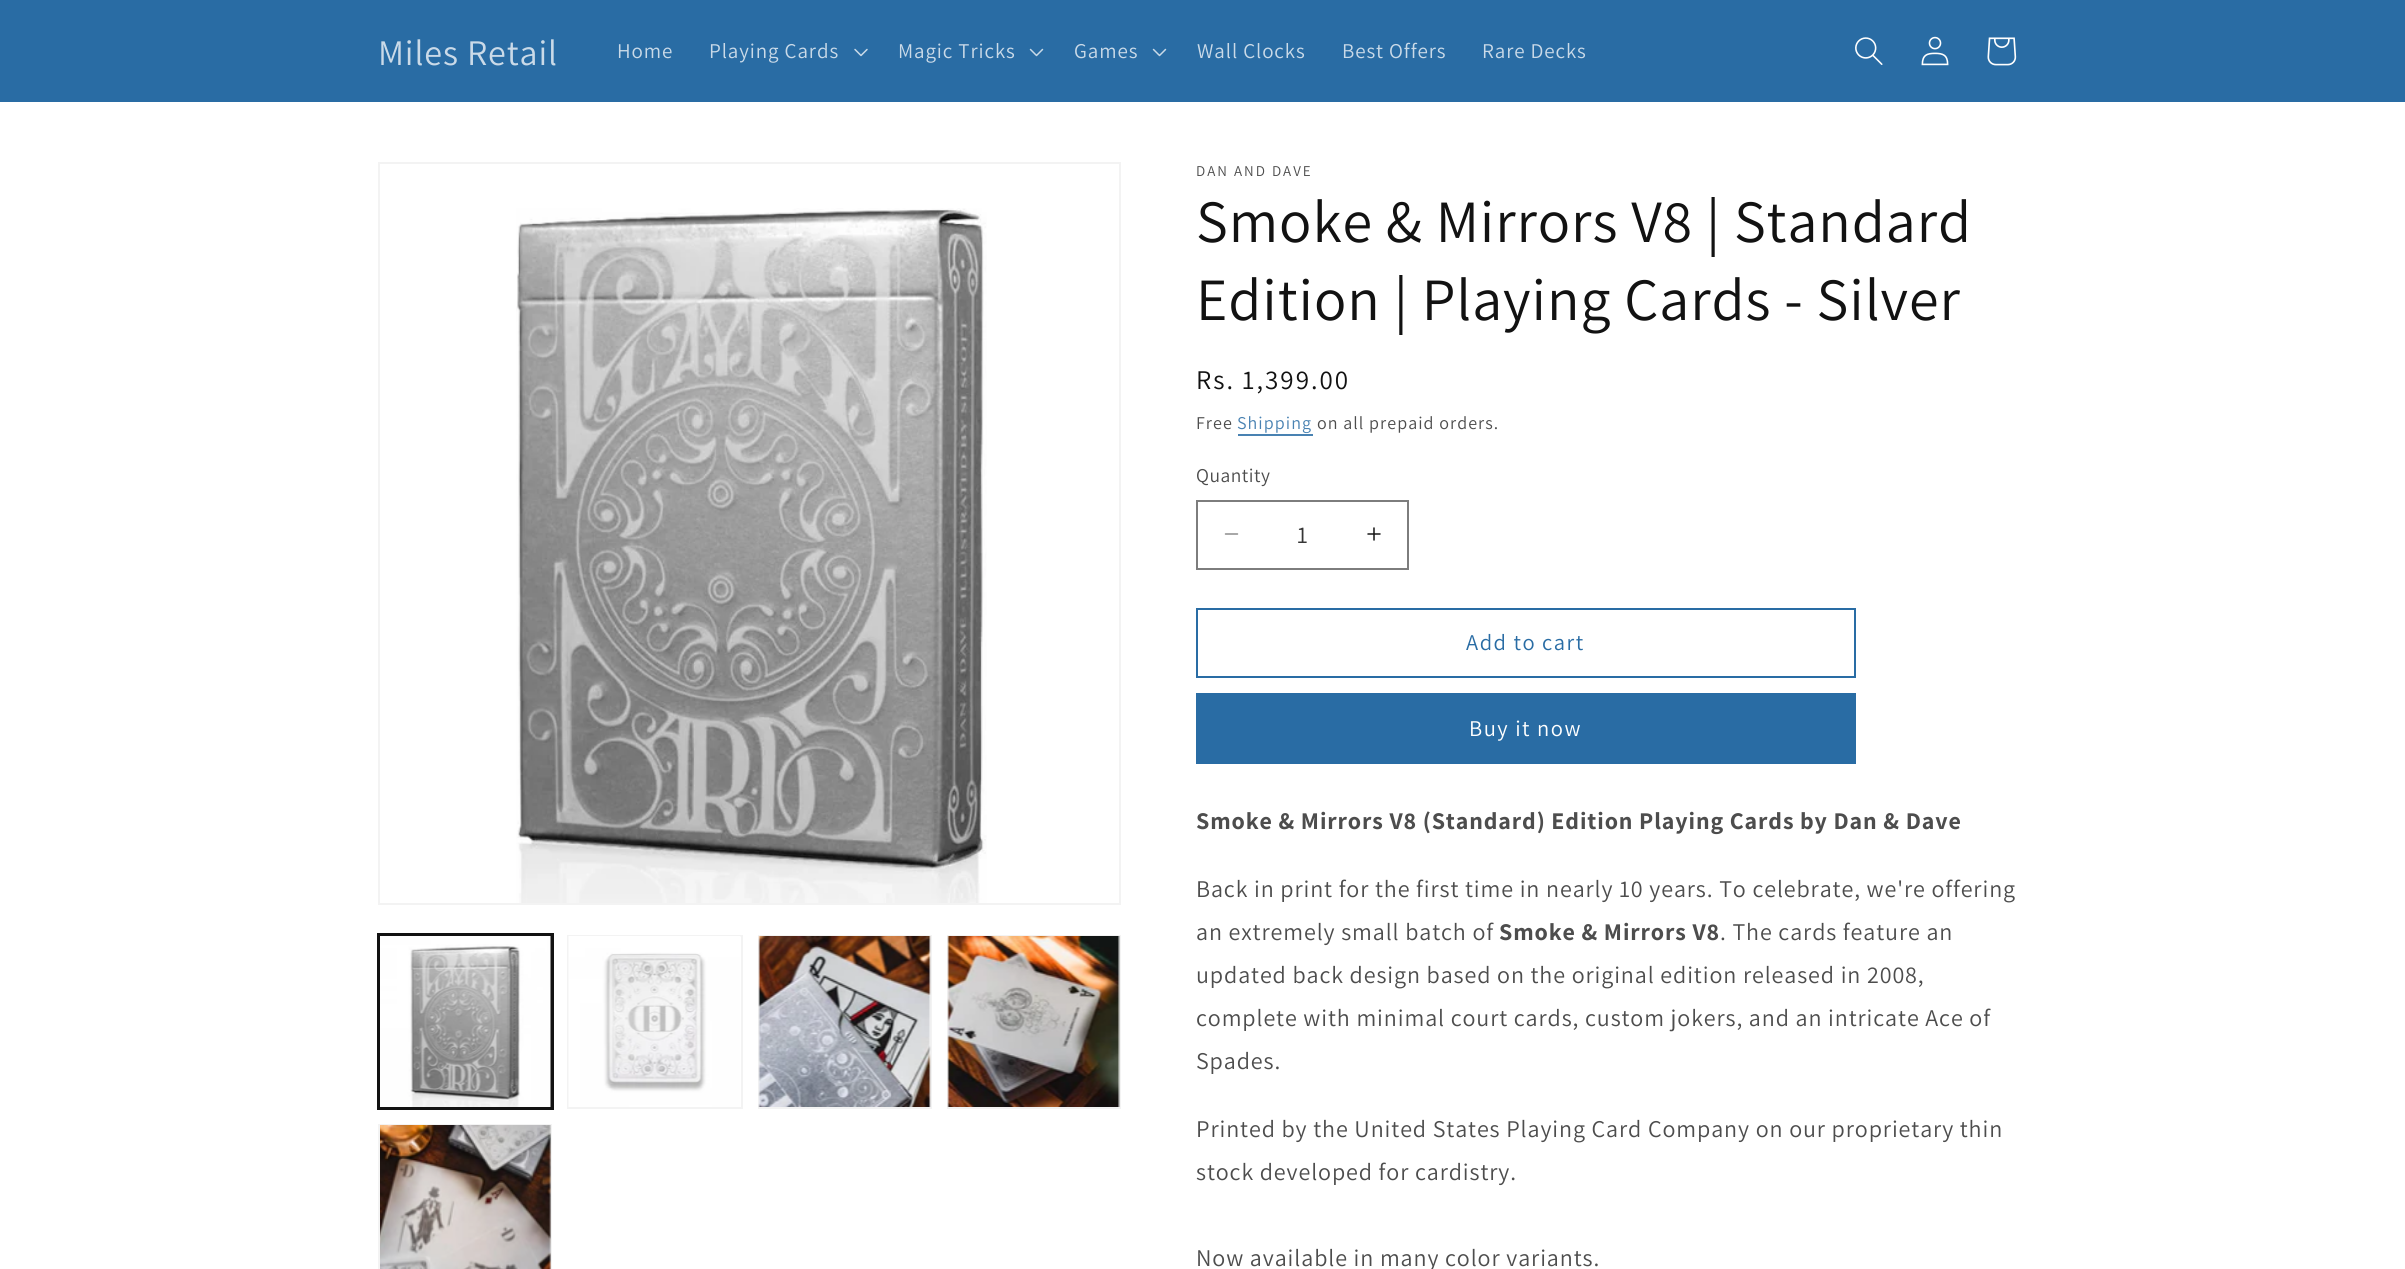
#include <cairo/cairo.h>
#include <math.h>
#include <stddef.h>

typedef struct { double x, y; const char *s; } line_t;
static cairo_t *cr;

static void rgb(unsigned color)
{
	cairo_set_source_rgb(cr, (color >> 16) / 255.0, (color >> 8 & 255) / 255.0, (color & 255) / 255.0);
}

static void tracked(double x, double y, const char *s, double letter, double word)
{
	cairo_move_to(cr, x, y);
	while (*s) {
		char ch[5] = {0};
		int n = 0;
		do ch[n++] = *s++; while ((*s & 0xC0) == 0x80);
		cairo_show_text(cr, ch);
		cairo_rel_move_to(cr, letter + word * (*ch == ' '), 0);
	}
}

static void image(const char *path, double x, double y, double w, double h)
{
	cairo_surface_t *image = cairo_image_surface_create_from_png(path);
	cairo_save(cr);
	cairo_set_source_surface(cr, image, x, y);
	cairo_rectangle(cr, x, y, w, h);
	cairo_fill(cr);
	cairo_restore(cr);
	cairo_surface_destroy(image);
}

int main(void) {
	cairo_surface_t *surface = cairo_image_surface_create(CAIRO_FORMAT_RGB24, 2405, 1269);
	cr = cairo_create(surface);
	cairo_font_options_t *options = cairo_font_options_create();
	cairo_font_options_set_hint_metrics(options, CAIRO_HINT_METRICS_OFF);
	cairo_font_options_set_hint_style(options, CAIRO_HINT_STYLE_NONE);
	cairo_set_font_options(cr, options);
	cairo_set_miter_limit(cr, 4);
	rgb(0xffffff);
	cairo_paint(cr);
	rgb(0x296ca4);
	cairo_rectangle(cr, 0, 0, 2405, 102);
	cairo_fill(cr);
	image("img/1.png", 854, 48, 14, 9);
	image("img/2.png", 1029, 48, 15, 9);
	image("img/2.png", 1152, 48, 15, 9);
	image("img/3.png", 1855, 37, 28, 28);
	image("img/4.png", 1921, 36, 28, 30);
	image("img/5.png", 1987, 37, 30, 29);
	cairo_rectangle(cr, 379, 163, 741, 741);
	rgb(0xf3f3f3);
	cairo_stroke(cr);
	image("img/6.png", 516, 208, 471, 695);
	cairo_rectangle(cr, 378, 934, 175, 175);
	rgb(0x121212);
	cairo_stroke(cr);
	cairo_rectangle(cr, 379, 936, 172, 172);
	cairo_stroke(cr);
	image("img/7.png", 380, 936, 171, 171);
	cairo_rectangle(cr, 568, 936, 174, 172);
	rgb(0xf3f3f3);
	cairo_stroke(cr);
	image("img/8.png", 568, 936, 173, 171);
	cairo_rectangle(cr, 759, 936, 172, 172);
	cairo_stroke(cr);
	image("img/9.png", 758, 936, 173, 171);
	cairo_rectangle(cr, 948, 936, 172, 172);
	cairo_stroke(cr);
	image("img/10.png", 947, 936, 173, 171);
	cairo_rectangle(cr, 379, 1125, 172, 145);
	cairo_stroke(cr);
	image("img/11.png", 380, 1125, 171, 144);
	rgb(0x4982b2);
	cairo_rectangle(cr, 1238, 434, 75, 2);
	cairo_fill(cr);
	image("img/12.png", 1224, 533, 15, 2);
	image("img/13.png", 1367, 527, 14, 14);
	cairo_rectangle(cr, 1197, 501, 211, 68);
	rgb(0x7d7d7d);
	cairo_stroke(cr);
	cairo_rectangle(cr, 1197, 609, 658, 68);
	rgb(0x296ca4);
	cairo_stroke(cr);
	cairo_rectangle(cr, 1196, 693, 660, 71);
	cairo_fill(cr);
	cairo_select_font_face(cr, "Assistant", CAIRO_FONT_SLANT_NORMAL, CAIRO_FONT_WEIGHT_NORMAL);
	cairo_set_font_size(cr, 36);
	rgb(0xcadae8);
	tracked(378, 65, "Miles Retail", 0.9, 0);
	cairo_set_font_size(cr, 21);
	{
		static const line_t items[] = {
			{617, 58, "Home"},
			{709, 58, "Playing Cards"},
			{898, 58, "Magic Tricks"},
			{1074, 58, "Games"},
			{1197, 58, "Wall Clocks"},
			{1342, 58, "Best Offers"},
			{1482, 58, "Rare Decks"},
		};
		for (size_t i = 0; i < sizeof items / sizeof *items; i++) {
			tracked(items[i].x, items[i].y, items[i].s, 0.9, 0);
		}
	}
	cairo_set_font_size(cr, 15);
	rgb(0x4d4d4d);
	tracked(1196, 176, "DAN AND DAVE", 2, 0);
	cairo_set_font_size(cr, 60);
	rgb(0x121212);
	tracked(1196, 242, "Smoke & Mirrors V8 | Standard", 0.9, 0);
	tracked(1196, 320, "Edition | Playing Cards - Silver", 0.9, 0);
	cairo_set_font_size(cr, 27);
	tracked(1196, 389, "Rs. 1,399.00", 2, 0);
	cairo_set_font_size(cr, 18);
	rgb(0x4d4d4d);
	tracked(1196, 429, "Free", 1.05, 0);
	rgb(0x4982b2);
	tracked(1237, 429, "Shipping", 1.05, 0);
	rgb(0x4d4d4d);
	tracked(1317, 429, "on all prepaid orders.", 1.05, 0);
	cairo_set_font_size(cr, 19.5);
	tracked(1196, 482, "Quantity", 0.5, 0);
	cairo_set_font_size(cr, 24);
	rgb(0x363636);
	cairo_move_to(cr, 1297, 543);
	cairo_show_text(cr, "1");
	cairo_set_font_size(cr, 22.5);
	rgb(0x296ca4);
	tracked(1466, 650, "Add to cart", 1.5, 0);
	rgb(0xffffff);
	tracked(1469, 736, "Buy it now", 1.5, 0);
	cairo_select_font_face(cr, "Assistant", CAIRO_FONT_SLANT_NORMAL, CAIRO_FONT_WEIGHT_BOLD);
	cairo_set_font_size(cr, 24);
	rgb(0x4d4d4d);
	tracked(1196, 829, "Smoke & Mirrors V8 (Standard) Edition Playing Cards by Dan & Dave", 0.9, 0);
	cairo_select_font_face(cr, "Assistant", CAIRO_FONT_SLANT_NORMAL, CAIRO_FONT_WEIGHT_NORMAL);
	tracked(1196, 897, "Back in print for the first time in nearly 10 years. To celebrate, we're offering", 0.9, 0);
	tracked(1196, 940, "an extremely small batch of", 0.9, 0);
	cairo_select_font_face(cr, "Assistant", CAIRO_FONT_SLANT_NORMAL, CAIRO_FONT_WEIGHT_BOLD);
	tracked(1499, 940, "Smoke & Mirrors V8", 0.9, 0);
	cairo_select_font_face(cr, "Assistant", CAIRO_FONT_SLANT_NORMAL, CAIRO_FONT_WEIGHT_NORMAL);
	{
		static const line_t items[] = {
			{1720, 940, ". The cards feature an"},
			{1196, 983, "updated back design based on the original edition released in 2008,"},
			{1196, 1026, "complete with minimal court cards, custom jokers, and an intricate Ace of"},
			{1196, 1069, "Spades."},
			{1196, 1137, "Printed by the United States Playing Card Company on our proprietary thin"},
			{1196, 1180, "stock developed for cardistry."},
			{1196, 1266, "Now available in many color variants."},
		};
		for (size_t i = 0; i < sizeof items / sizeof *items; i++) {
			tracked(items[i].x, items[i].y, items[i].s, 0.9, 0);
		}
	}
	cairo_surface_write_to_png(surface, "page.png");
	cairo_font_options_destroy(options);
	cairo_destroy(cr);
	cairo_surface_destroy(surface);
	return 0;
}
